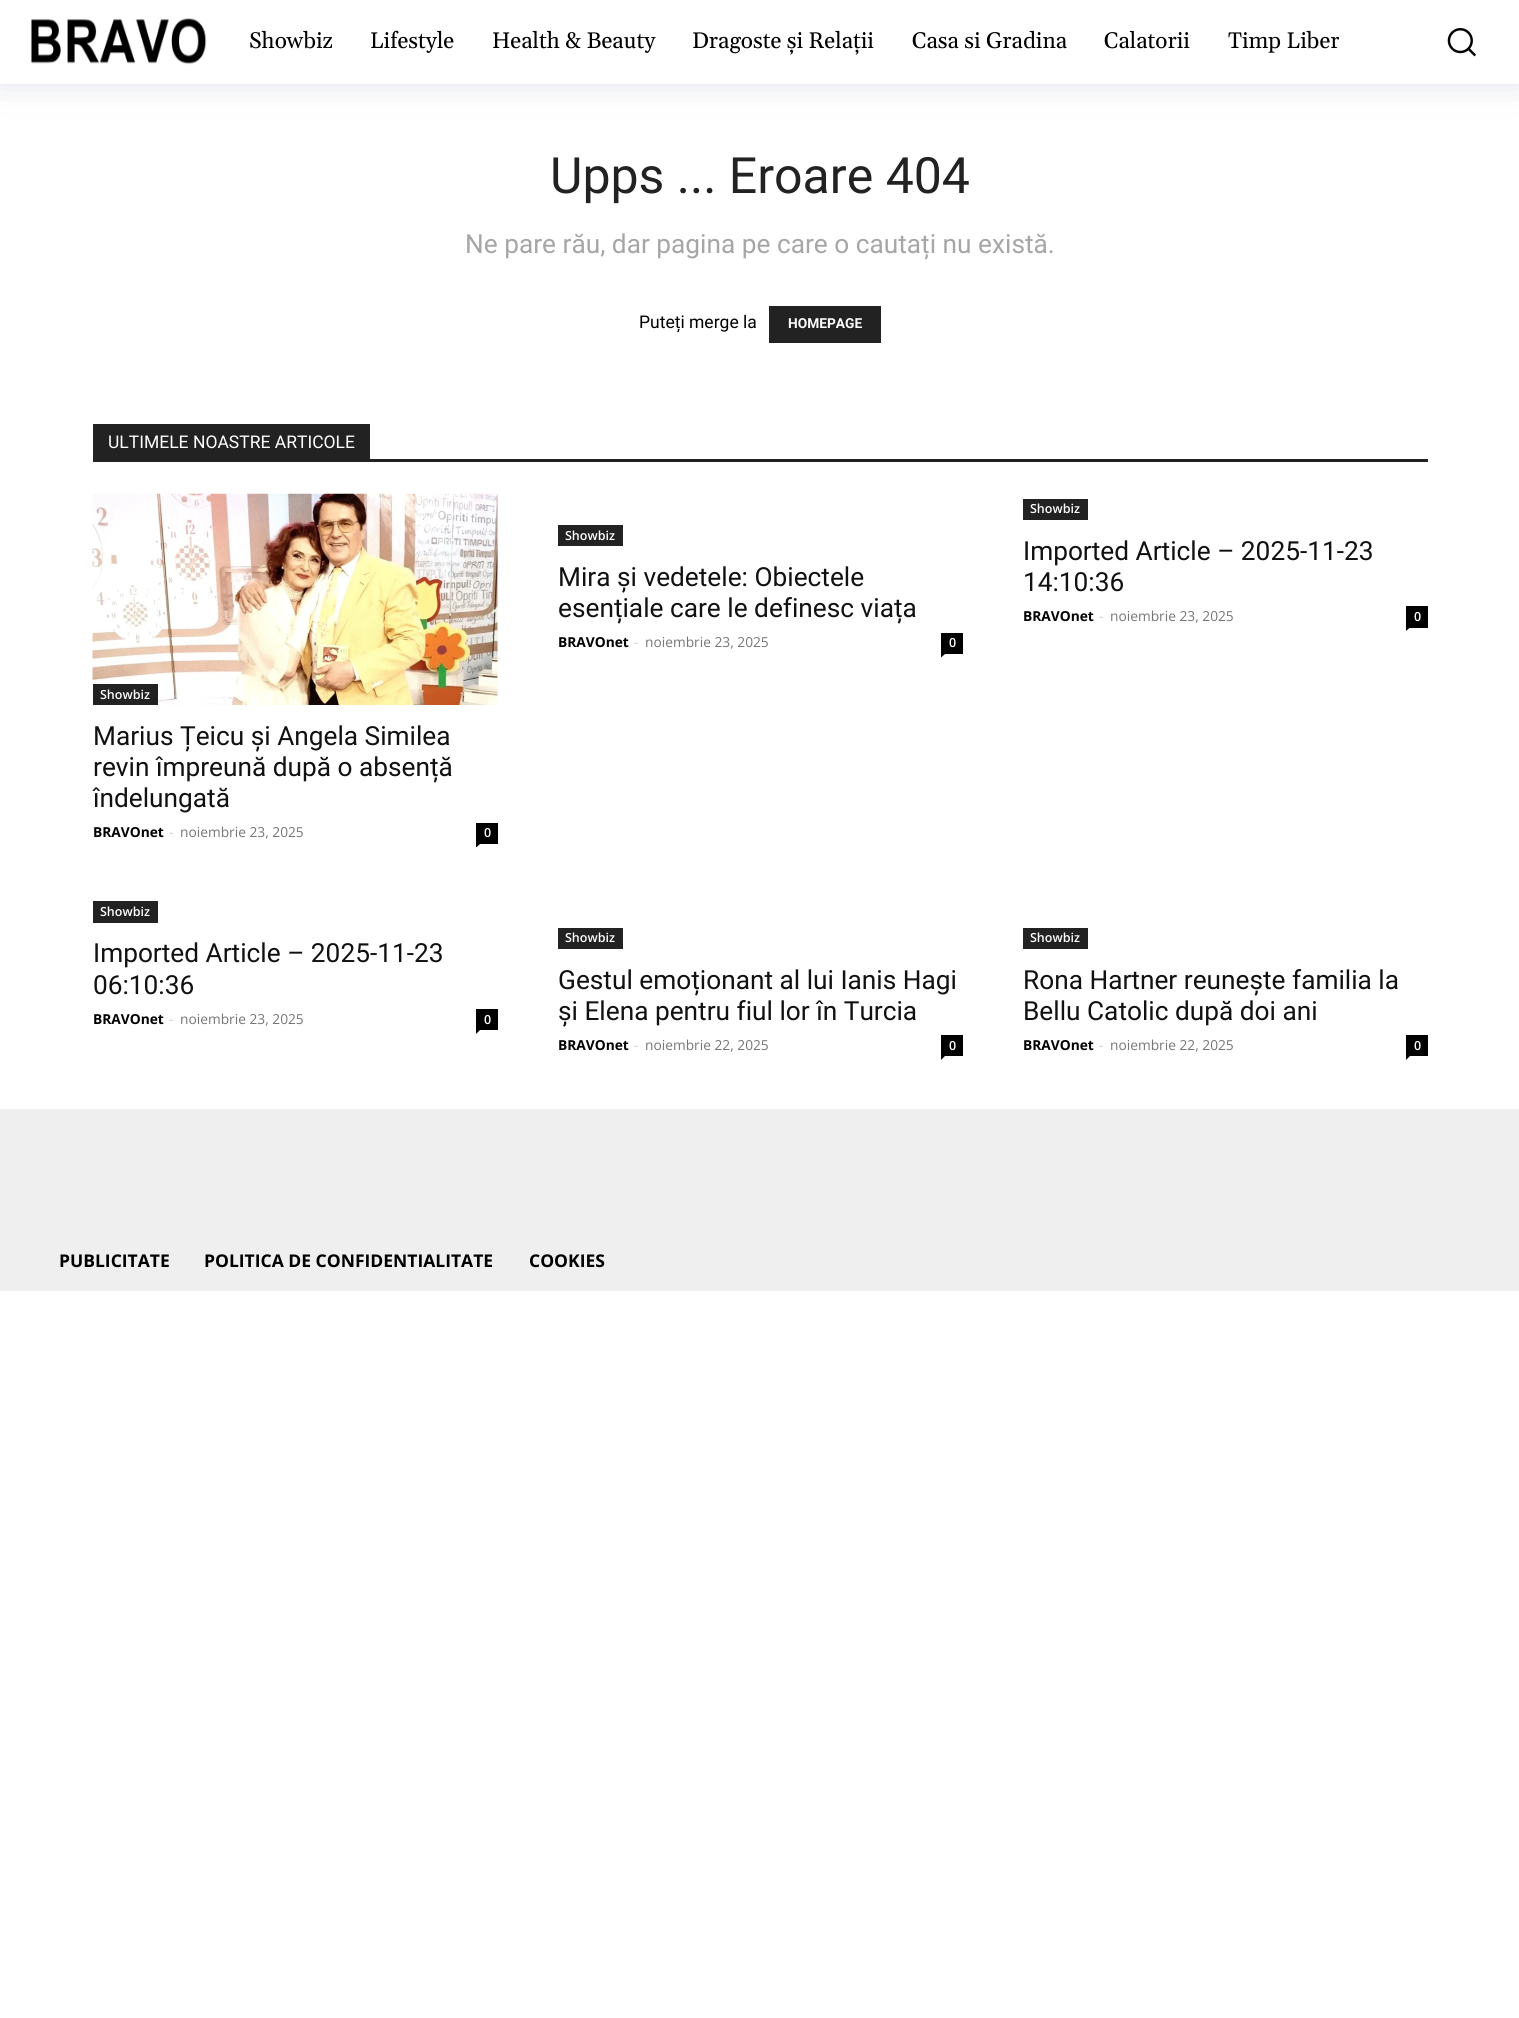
#include <cairo/cairo.h>
#include <math.h>
#include <stddef.h>

typedef struct { double x, y; const char *s; } line_t;
typedef struct { double x, y, w, h; unsigned color; } box_t;
static cairo_t *cr;

static void rgb(unsigned color)
{
	cairo_set_source_rgb(cr, (color >> 16) / 255.0, (color >> 8 & 255) / 255.0, (color & 255) / 255.0);
}

static void rrect(double x, double y, double w, double h, double r)
{
	cairo_new_sub_path(cr);
	cairo_arc(cr, x + w - r, y + h - r, r, 0, M_PI / 2);
	cairo_arc(cr, x + r, y + h - r, r, M_PI / 2, M_PI);
	cairo_arc(cr, x + r, y + r, r, M_PI, 1.5 * M_PI);
	cairo_arc(cr, x + w - r, y + r, r, 1.5 * M_PI, 2 * M_PI);
	cairo_close_path(cr);
}

static void soft_shadow(double x, double y, double w, double h, double r, double blur, double alpha)
{
	cairo_push_group_with_content(cr, CAIRO_CONTENT_ALPHA);
	cairo_set_operator(cr, CAIRO_OPERATOR_SOURCE);
	for (int i = 15; i >= -15 && fmin(w, h) + blur * i / 3 > 0; i -= 2) {
		double e = blur * i / 6;
		cairo_set_source_rgba(cr, 0, 0, 0, alpha * erfc((i - 1) / 8.5) / 2);
		rrect(x - e, y - e, w + 2 * e, h + 2 * e, fmax(0, fmin(r + e + blur * .6, fmin(w, h) / 2 + e)));
		cairo_fill(cr);
	}
	cairo_pattern_t *soft = cairo_pop_group(cr);
	cairo_mask(cr, soft);
	cairo_pattern_destroy(soft);
}

static void image(const char *path, double x, double y, double w, double h)
{
	cairo_surface_t *image = cairo_image_surface_create_from_png(path);
	cairo_save(cr);
	cairo_set_source_surface(cr, image, x, y);
	cairo_rectangle(cr, x, y, w, h);
	cairo_fill(cr);
	cairo_restore(cr);
	cairo_surface_destroy(image);
}

int main(void) {
	cairo_surface_t *surface = cairo_image_surface_create(CAIRO_FORMAT_RGB24, 1519, 2018);
	cr = cairo_create(surface);
	cairo_font_options_t *options = cairo_font_options_create();
	cairo_font_options_set_hint_metrics(options, CAIRO_HINT_METRICS_OFF);
	cairo_font_options_set_hint_style(options, CAIRO_HINT_STYLE_NONE);
	cairo_set_font_options(cr, options);
	cairo_set_miter_limit(cr, 4);
	rgb(0xffffff);
	cairo_paint(cr);
	image("img/1.png", 30, 18, 177, 47);
	cairo_save(cr);
	cairo_set_fill_rule(cr, CAIRO_FILL_RULE_EVEN_ODD);
	cairo_new_path(cr);
	cairo_move_to(cr, 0, 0);
	cairo_line_to(cr, 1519, 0);
	cairo_line_to(cr, 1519, 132);
	cairo_line_to(cr, 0, 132);
	cairo_close_path(cr);
	cairo_move_to(cr, 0, 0);
	cairo_line_to(cr, 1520, 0);
	cairo_line_to(cr, 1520, 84);
	cairo_line_to(cr, 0, 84);
	cairo_close_path(cr);
	cairo_clip(cr);
	rgb(0x5e6a87);
	soft_shadow(0, 0, 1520, 84, 0, 15.5, 0.2);
	cairo_restore(cr);
	image("img/2.png", 1447, 28, 29, 29);
	{
		static const box_t items[] = {
			{769, 306, 112, 37, 0x222222},
			{93, 459, 1335, 3, 0x222222},
			{93, 424, 277, 35, 0x222222},
			{558, 525, 65, 21, 0x222222},
			{941, 633, 22, 21, 0x000000},
		};
		for (size_t i = 0; i < sizeof items / sizeof *items; i++) {
			rgb(items[i].color);
			cairo_rectangle(cr, items[i].x, items[i].y, items[i].w, items[i].h);
			cairo_fill(cr);
		}
	}
	cairo_new_path(cr);
	cairo_move_to(cr, 941, 654);
	cairo_line_to(cr, 945, 654);
	cairo_line_to(cr, 941, 657.5);
	cairo_close_path(cr);
	cairo_fill(cr);
	rgb(0x222222);
	cairo_rectangle(cr, 1023, 499, 65, 21);
	cairo_fill(cr);
	rgb(0x000000);
	cairo_rectangle(cr, 1406, 606, 22, 22);
	cairo_fill(cr);
	cairo_new_path(cr);
	cairo_move_to(cr, 1406, 627.5);
	cairo_line_to(cr, 1410, 627.5);
	cairo_line_to(cr, 1406, 631);
	cairo_close_path(cr);
	cairo_fill(cr);
	image("img/3.png", 92, 493, 406, 212);
	rgb(0x222222);
	cairo_rectangle(cr, 93, 684, 65, 21);
	cairo_fill(cr);
	rgb(0x000000);
	cairo_rectangle(cr, 476, 823, 22, 21);
	cairo_fill(cr);
	cairo_new_path(cr);
	cairo_move_to(cr, 476, 844);
	cairo_line_to(cr, 480, 844);
	cairo_line_to(cr, 476, 847.5);
	cairo_close_path(cr);
	cairo_fill(cr);
	rgb(0x222222);
	cairo_rectangle(cr, 93, 901, 65, 22);
	cairo_fill(cr);
	rgb(0x000000);
	cairo_rectangle(cr, 476, 1009, 22, 21);
	cairo_fill(cr);
	cairo_new_path(cr);
	cairo_move_to(cr, 476, 1030);
	cairo_line_to(cr, 480, 1030);
	cairo_line_to(cr, 476, 1034);
	cairo_close_path(cr);
	cairo_fill(cr);
	rgb(0x222222);
	cairo_rectangle(cr, 558, 928, 65, 21);
	cairo_fill(cr);
	rgb(0x000000);
	cairo_rectangle(cr, 941, 1035, 22, 21);
	cairo_fill(cr);
	cairo_new_path(cr);
	cairo_move_to(cr, 941, 1056);
	cairo_line_to(cr, 945, 1056);
	cairo_line_to(cr, 941, 1060);
	cairo_close_path(cr);
	cairo_fill(cr);
	rgb(0x222222);
	cairo_rectangle(cr, 1023, 928, 65, 21);
	cairo_fill(cr);
	rgb(0x000000);
	cairo_rectangle(cr, 1406, 1035, 22, 21);
	cairo_fill(cr);
	cairo_new_path(cr);
	cairo_move_to(cr, 1406, 1056);
	cairo_line_to(cr, 1410, 1056);
	cairo_line_to(cr, 1406, 1060);
	cairo_close_path(cr);
	cairo_fill(cr);
	rgb(0xefefef);
	cairo_rectangle(cr, 0, 1109, 1519, 182);
	cairo_fill(cr);
	cairo_select_font_face(cr, "Gelasio", CAIRO_FONT_SLANT_NORMAL, CAIRO_FONT_WEIGHT_NORMAL);
	cairo_set_font_size(cr, 22.5);
	rgb(0x000000);
	{
		static const line_t items[] = {
			{249, 48, "Showbiz"},
			{370, 48, "Lifestyle"},
			{492, 48, "Health & Beauty"},
			{692, 48, "Dragoste și Relații"},
			{912, 48, "Casa si Gradina"},
			{1104, 48, "Calatorii"},
			{1228, 48, "Timp Liber"},
		};
		for (size_t i = 0; i < sizeof items / sizeof *items; i++) {
			cairo_move_to(cr, items[i].x, items[i].y);
			cairo_show_text(cr, items[i].s);
		}
	}
	cairo_select_font_face(cr, "Roboto", CAIRO_FONT_SLANT_NORMAL, CAIRO_FONT_WEIGHT_NORMAL);
	cairo_set_font_size(cr, 50);
	rgb(0x222222);
	cairo_move_to(cr, 550, 193);
	cairo_show_text(cr, "Upps ... Eroare 404");
	cairo_set_font_size(cr, 26.25);
	rgb(0xa6a6a6);
	cairo_move_to(cr, 465, 253);
	cairo_show_text(cr, "Ne pare rău, dar pagina pe care o cautați nu există.");
	cairo_set_font_size(cr, 17.5);
	rgb(0x000000);
	cairo_move_to(cr, 639, 328);
	cairo_show_text(cr, "Puteți merge la");
	cairo_select_font_face(cr, "Roboto", CAIRO_FONT_SLANT_NORMAL, CAIRO_FONT_WEIGHT_BOLD);
	cairo_set_font_size(cr, 13.75);
	rgb(0xffffff);
	cairo_move_to(cr, 788, 328);
	cairo_show_text(cr, "HOMEPAGE");
	cairo_select_font_face(cr, "Roboto", CAIRO_FONT_SLANT_NORMAL, CAIRO_FONT_WEIGHT_NORMAL);
	cairo_set_font_size(cr, 17.5);
	cairo_move_to(cr, 108, 448);
	cairo_show_text(cr, "ULTIMELE NOASTRE ARTICOLE");
	cairo_select_font_face(cr, "Open Sans SemiBold", CAIRO_FONT_SLANT_NORMAL, CAIRO_FONT_WEIGHT_NORMAL);
	cairo_set_font_size(cr, 12.5);
	cairo_move_to(cr, 565, 540);
	cairo_show_text(cr, "Showbiz");
	cairo_select_font_face(cr, "Roboto", CAIRO_FONT_SLANT_NORMAL, CAIRO_FONT_WEIGHT_NORMAL);
	cairo_set_font_size(cr, 26.25);
	rgb(0x111111);
	cairo_move_to(cr, 558, 586);
	cairo_show_text(cr, "Mira și vedetele: Obiectele");
	cairo_move_to(cr, 558, 617);
	cairo_show_text(cr, "esențiale care le definesc viața");
	cairo_select_font_face(cr, "Open Sans", CAIRO_FONT_SLANT_NORMAL, CAIRO_FONT_WEIGHT_BOLD);
	cairo_set_font_size(cr, 13.75);
	rgb(0x000000);
	cairo_move_to(cr, 558, 647);
	cairo_show_text(cr, "BRAVOnet");
	cairo_select_font_face(cr, "Open Sans", CAIRO_FONT_SLANT_NORMAL, CAIRO_FONT_WEIGHT_NORMAL);
	rgb(0xcccccc);
	cairo_move_to(cr, 634, 647);
	cairo_show_text(cr, "-");
	rgb(0x767676);
	cairo_move_to(cr, 645, 647);
	cairo_show_text(cr, "noiembrie 23, 2025");
	cairo_select_font_face(cr, "Open Sans SemiBold", CAIRO_FONT_SLANT_NORMAL, CAIRO_FONT_WEIGHT_NORMAL);
	cairo_set_font_size(cr, 12.5);
	rgb(0xffffff);
	cairo_move_to(cr, 949, 647);
	cairo_show_text(cr, "0");
	cairo_move_to(cr, 1030, 513);
	cairo_show_text(cr, "Showbiz");
	cairo_select_font_face(cr, "Roboto", CAIRO_FONT_SLANT_NORMAL, CAIRO_FONT_WEIGHT_NORMAL);
	cairo_set_font_size(cr, 26.25);
	rgb(0x111111);
	cairo_move_to(cr, 1023, 560);
	cairo_show_text(cr, "Imported Article – 2025-11-23");
	cairo_move_to(cr, 1023, 591);
	cairo_show_text(cr, "14:10:36");
	cairo_select_font_face(cr, "Open Sans", CAIRO_FONT_SLANT_NORMAL, CAIRO_FONT_WEIGHT_BOLD);
	cairo_set_font_size(cr, 13.75);
	rgb(0x000000);
	cairo_move_to(cr, 1023, 621);
	cairo_show_text(cr, "BRAVOnet");
	cairo_select_font_face(cr, "Open Sans", CAIRO_FONT_SLANT_NORMAL, CAIRO_FONT_WEIGHT_NORMAL);
	rgb(0xcccccc);
	cairo_move_to(cr, 1099, 621);
	cairo_show_text(cr, "-");
	rgb(0x767676);
	cairo_move_to(cr, 1110, 621);
	cairo_show_text(cr, "noiembrie 23, 2025");
	cairo_select_font_face(cr, "Open Sans SemiBold", CAIRO_FONT_SLANT_NORMAL, CAIRO_FONT_WEIGHT_NORMAL);
	cairo_set_font_size(cr, 12.5);
	rgb(0xffffff);
	cairo_move_to(cr, 1414, 621);
	cairo_show_text(cr, "0");
	cairo_move_to(cr, 100, 699);
	cairo_show_text(cr, "Showbiz");
	cairo_select_font_face(cr, "Roboto", CAIRO_FONT_SLANT_NORMAL, CAIRO_FONT_WEIGHT_NORMAL);
	cairo_set_font_size(cr, 26.25);
	rgb(0x111111);
	{
		static const line_t items[] = {
			{93, 745, "Marius Țeicu și Angela Similea"},
			{93, 776, "revin împreună după o absență"},
			{93, 807, "îndelungată"},
		};
		for (size_t i = 0; i < sizeof items / sizeof *items; i++) {
			cairo_move_to(cr, items[i].x, items[i].y);
			cairo_show_text(cr, items[i].s);
		}
	}
	cairo_select_font_face(cr, "Open Sans", CAIRO_FONT_SLANT_NORMAL, CAIRO_FONT_WEIGHT_BOLD);
	cairo_set_font_size(cr, 13.75);
	rgb(0x000000);
	cairo_move_to(cr, 93, 837);
	cairo_show_text(cr, "BRAVOnet");
	cairo_select_font_face(cr, "Open Sans", CAIRO_FONT_SLANT_NORMAL, CAIRO_FONT_WEIGHT_NORMAL);
	rgb(0xcccccc);
	cairo_move_to(cr, 169, 837);
	cairo_show_text(cr, "-");
	rgb(0x767676);
	cairo_move_to(cr, 180, 837);
	cairo_show_text(cr, "noiembrie 23, 2025");
	cairo_select_font_face(cr, "Open Sans SemiBold", CAIRO_FONT_SLANT_NORMAL, CAIRO_FONT_WEIGHT_NORMAL);
	cairo_set_font_size(cr, 12.5);
	rgb(0xffffff);
	cairo_move_to(cr, 484, 837);
	cairo_show_text(cr, "0");
	cairo_move_to(cr, 100, 916);
	cairo_show_text(cr, "Showbiz");
	cairo_select_font_face(cr, "Roboto", CAIRO_FONT_SLANT_NORMAL, CAIRO_FONT_WEIGHT_NORMAL);
	cairo_set_font_size(cr, 26.25);
	rgb(0x111111);
	cairo_move_to(cr, 93, 962);
	cairo_show_text(cr, "Imported Article – 2025-11-23");
	cairo_move_to(cr, 93, 994);
	cairo_show_text(cr, "06:10:36");
	cairo_select_font_face(cr, "Open Sans", CAIRO_FONT_SLANT_NORMAL, CAIRO_FONT_WEIGHT_BOLD);
	cairo_set_font_size(cr, 13.75);
	rgb(0x000000);
	cairo_move_to(cr, 93, 1024);
	cairo_show_text(cr, "BRAVOnet");
	cairo_select_font_face(cr, "Open Sans", CAIRO_FONT_SLANT_NORMAL, CAIRO_FONT_WEIGHT_NORMAL);
	rgb(0xcccccc);
	cairo_move_to(cr, 169, 1024);
	cairo_show_text(cr, "-");
	rgb(0x767676);
	cairo_move_to(cr, 180, 1024);
	cairo_show_text(cr, "noiembrie 23, 2025");
	cairo_select_font_face(cr, "Open Sans SemiBold", CAIRO_FONT_SLANT_NORMAL, CAIRO_FONT_WEIGHT_NORMAL);
	cairo_set_font_size(cr, 12.5);
	rgb(0xffffff);
	cairo_move_to(cr, 484, 1024);
	cairo_show_text(cr, "0");
	cairo_move_to(cr, 565, 942);
	cairo_show_text(cr, "Showbiz");
	cairo_select_font_face(cr, "Roboto", CAIRO_FONT_SLANT_NORMAL, CAIRO_FONT_WEIGHT_NORMAL);
	cairo_set_font_size(cr, 26.25);
	rgb(0x111111);
	cairo_move_to(cr, 558, 989);
	cairo_show_text(cr, "Gestul emoționant al lui Ianis Hagi");
	cairo_move_to(cr, 558, 1020);
	cairo_show_text(cr, "și Elena pentru fiul lor în Turcia");
	cairo_select_font_face(cr, "Open Sans", CAIRO_FONT_SLANT_NORMAL, CAIRO_FONT_WEIGHT_BOLD);
	cairo_set_font_size(cr, 13.75);
	rgb(0x000000);
	cairo_move_to(cr, 558, 1050);
	cairo_show_text(cr, "BRAVOnet");
	cairo_select_font_face(cr, "Open Sans", CAIRO_FONT_SLANT_NORMAL, CAIRO_FONT_WEIGHT_NORMAL);
	rgb(0xcccccc);
	cairo_move_to(cr, 634, 1050);
	cairo_show_text(cr, "-");
	rgb(0x767676);
	cairo_move_to(cr, 645, 1050);
	cairo_show_text(cr, "noiembrie 22, 2025");
	cairo_select_font_face(cr, "Open Sans SemiBold", CAIRO_FONT_SLANT_NORMAL, CAIRO_FONT_WEIGHT_NORMAL);
	cairo_set_font_size(cr, 12.5);
	rgb(0xffffff);
	cairo_move_to(cr, 949, 1050);
	cairo_show_text(cr, "0");
	cairo_move_to(cr, 1030, 942);
	cairo_show_text(cr, "Showbiz");
	cairo_select_font_face(cr, "Roboto", CAIRO_FONT_SLANT_NORMAL, CAIRO_FONT_WEIGHT_NORMAL);
	cairo_set_font_size(cr, 26.25);
	rgb(0x111111);
	cairo_move_to(cr, 1023, 989);
	cairo_show_text(cr, "Rona Hartner reunește familia la");
	cairo_move_to(cr, 1023, 1020);
	cairo_show_text(cr, "Bellu Catolic după doi ani");
	cairo_select_font_face(cr, "Open Sans", CAIRO_FONT_SLANT_NORMAL, CAIRO_FONT_WEIGHT_BOLD);
	cairo_set_font_size(cr, 13.75);
	rgb(0x000000);
	cairo_move_to(cr, 1023, 1050);
	cairo_show_text(cr, "BRAVOnet");
	cairo_select_font_face(cr, "Open Sans", CAIRO_FONT_SLANT_NORMAL, CAIRO_FONT_WEIGHT_NORMAL);
	rgb(0xcccccc);
	cairo_move_to(cr, 1099, 1050);
	cairo_show_text(cr, "-");
	rgb(0x767676);
	cairo_move_to(cr, 1110, 1050);
	cairo_show_text(cr, "noiembrie 22, 2025");
	cairo_select_font_face(cr, "Open Sans SemiBold", CAIRO_FONT_SLANT_NORMAL, CAIRO_FONT_WEIGHT_NORMAL);
	cairo_set_font_size(cr, 12.5);
	rgb(0xffffff);
	cairo_move_to(cr, 1414, 1050);
	cairo_show_text(cr, "0");
	cairo_select_font_face(cr, "Open Sans", CAIRO_FONT_SLANT_NORMAL, CAIRO_FONT_WEIGHT_BOLD);
	cairo_set_font_size(cr, 17.5);
	rgb(0x000000);
	{
		static const line_t items[] = {
			{59, 1267, "PUBLICITATE"},
			{204, 1267, "POLITICA DE CONFIDENTIALITATE"},
			{529, 1267, "COOKIES"},
		};
		for (size_t i = 0; i < sizeof items / sizeof *items; i++) {
			cairo_move_to(cr, items[i].x, items[i].y);
			cairo_show_text(cr, items[i].s);
		}
	}
	cairo_surface_write_to_png(surface, "page.png");
	cairo_font_options_destroy(options);
	cairo_destroy(cr);
	cairo_surface_destroy(surface);
	return 0;
}
